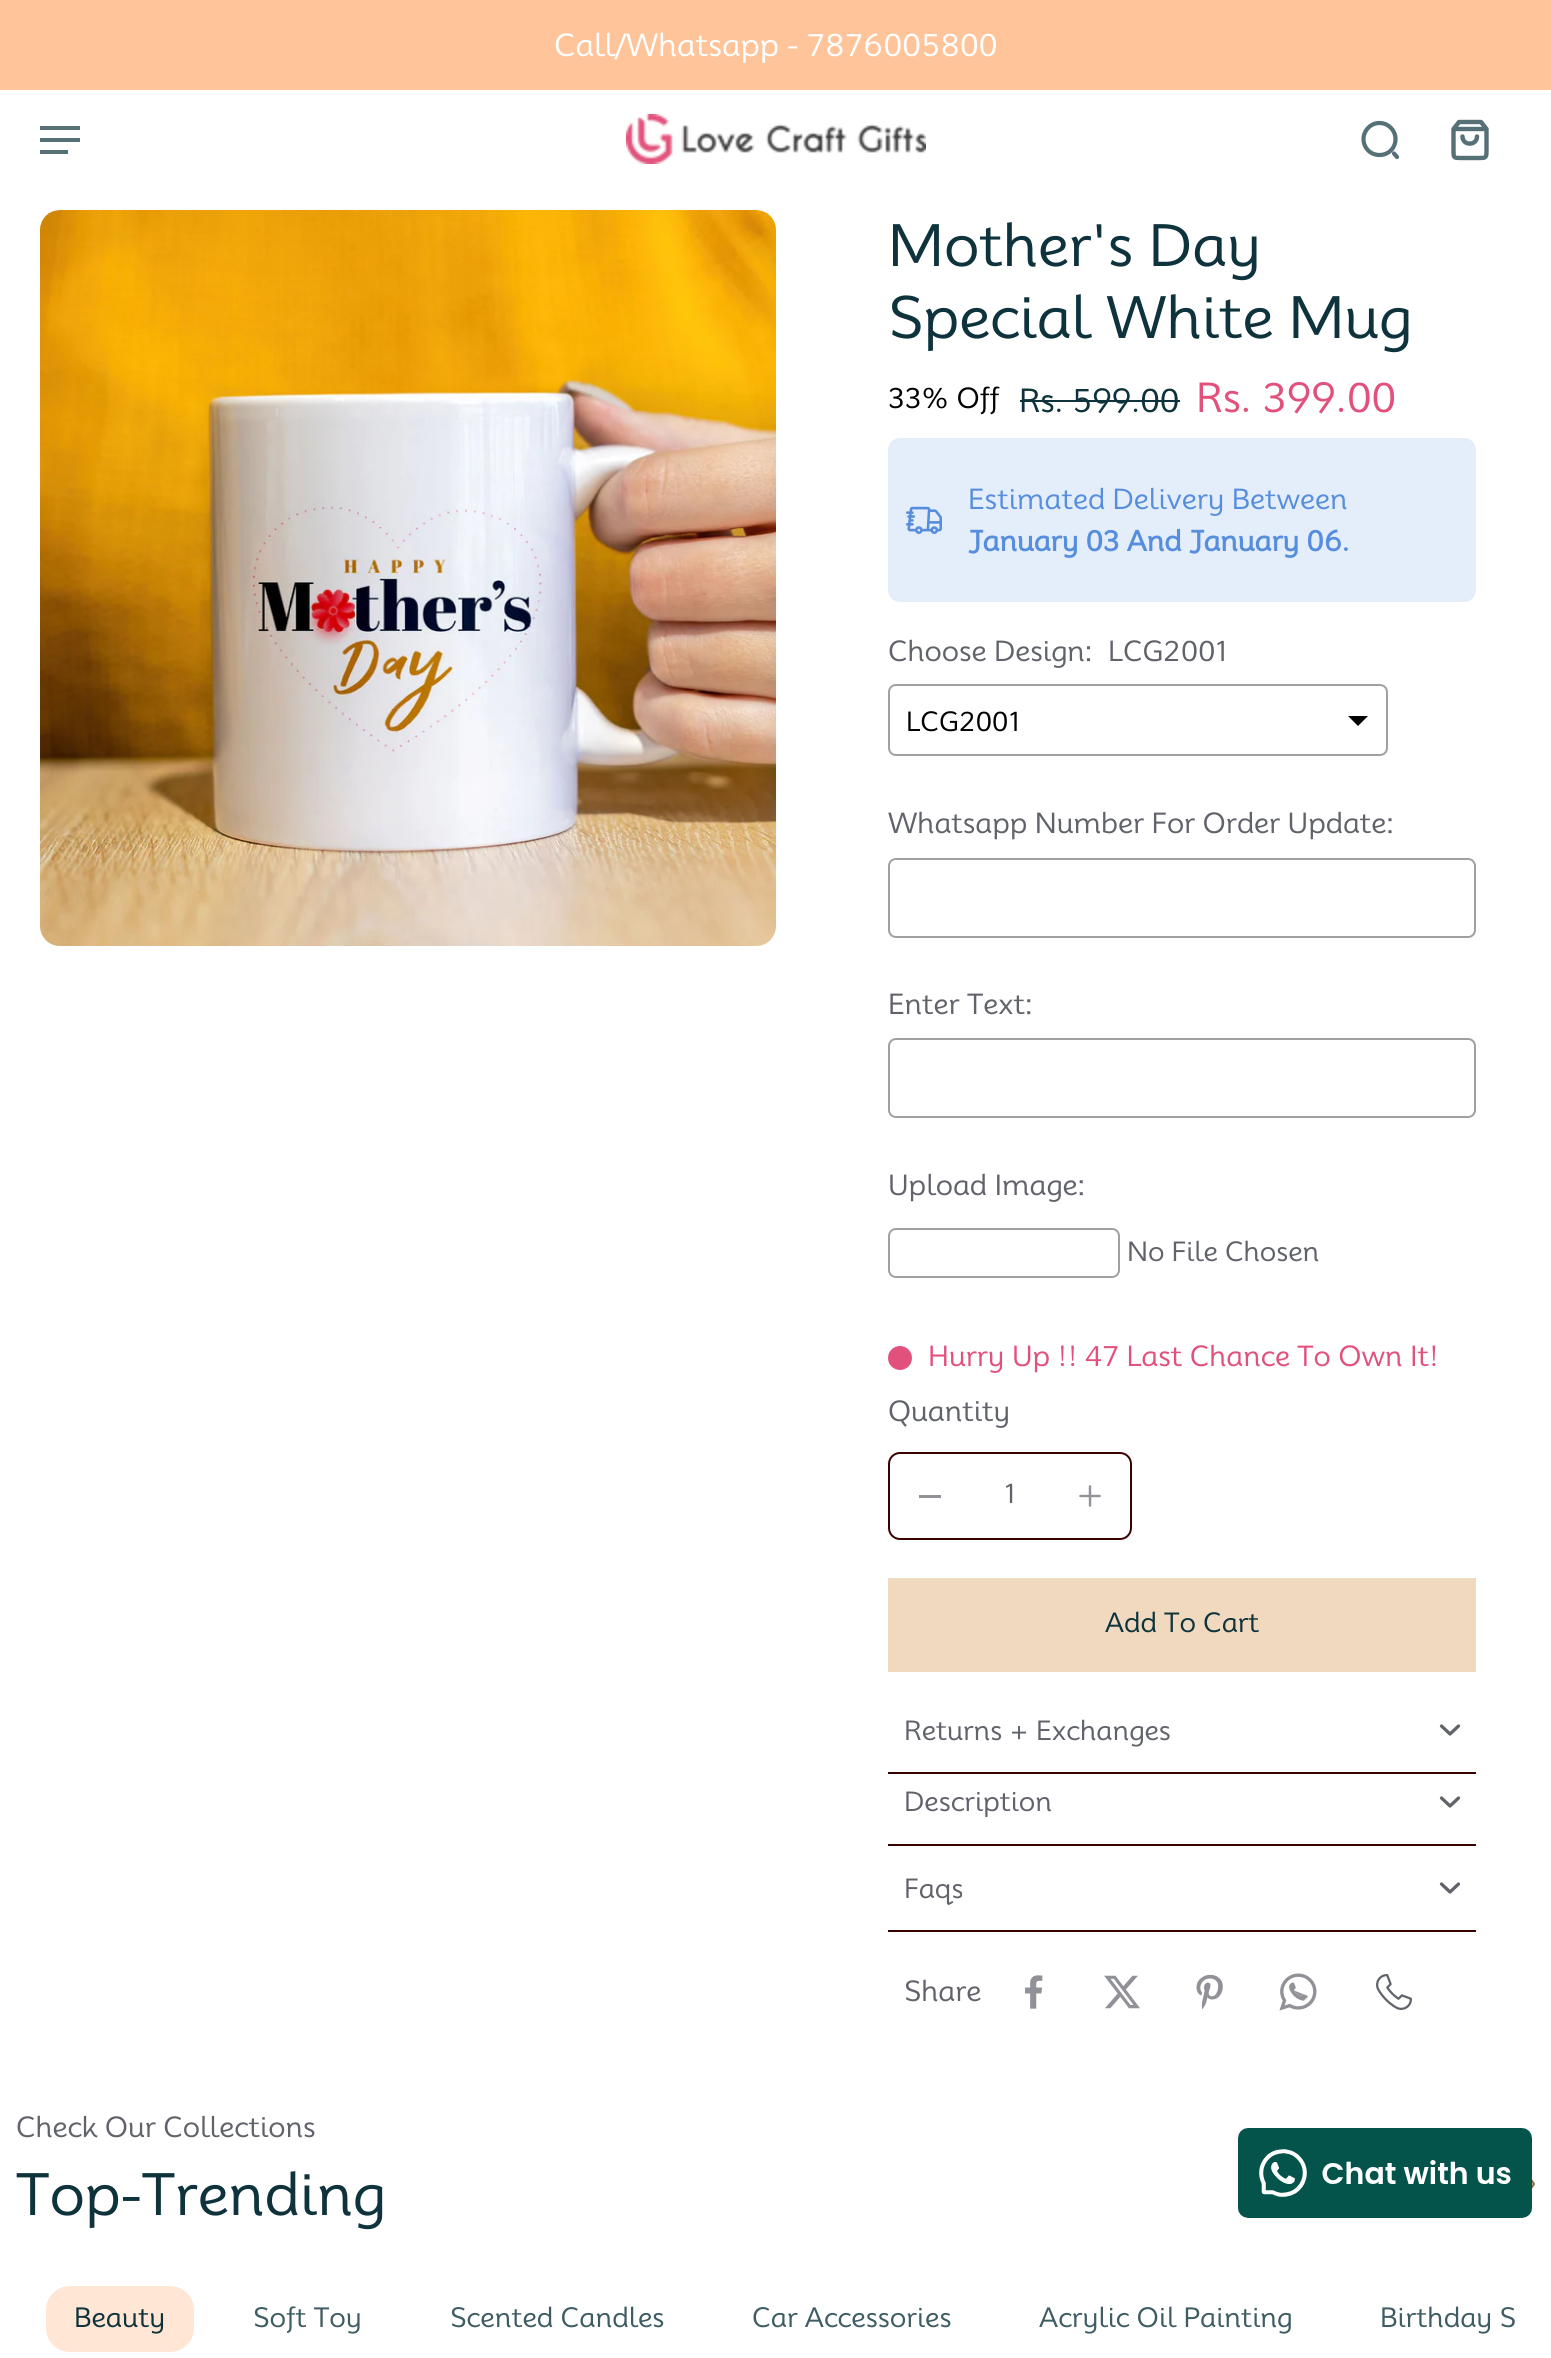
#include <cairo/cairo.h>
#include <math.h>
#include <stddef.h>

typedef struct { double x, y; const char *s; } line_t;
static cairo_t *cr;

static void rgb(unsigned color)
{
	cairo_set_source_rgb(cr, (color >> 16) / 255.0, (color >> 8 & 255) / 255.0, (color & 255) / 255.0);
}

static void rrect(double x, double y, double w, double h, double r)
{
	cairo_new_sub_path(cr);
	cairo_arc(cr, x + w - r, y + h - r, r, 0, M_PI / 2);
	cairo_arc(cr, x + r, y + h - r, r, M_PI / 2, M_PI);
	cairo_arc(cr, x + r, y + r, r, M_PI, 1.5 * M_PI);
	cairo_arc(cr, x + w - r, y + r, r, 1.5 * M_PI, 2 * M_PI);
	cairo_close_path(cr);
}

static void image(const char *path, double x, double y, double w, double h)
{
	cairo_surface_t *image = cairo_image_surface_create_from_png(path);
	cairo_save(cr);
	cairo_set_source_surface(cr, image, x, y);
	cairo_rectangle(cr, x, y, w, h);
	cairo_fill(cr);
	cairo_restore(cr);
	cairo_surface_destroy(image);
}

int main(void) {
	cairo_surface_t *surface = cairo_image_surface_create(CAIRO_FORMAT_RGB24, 1551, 2358);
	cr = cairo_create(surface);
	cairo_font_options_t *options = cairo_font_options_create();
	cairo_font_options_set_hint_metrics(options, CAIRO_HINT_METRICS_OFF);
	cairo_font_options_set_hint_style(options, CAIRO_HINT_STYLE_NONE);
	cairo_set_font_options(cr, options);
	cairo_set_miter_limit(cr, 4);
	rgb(0xffffff);
	cairo_paint(cr);
	rgb(0xffc49a);
	cairo_rectangle(cr, 0, 0, 1551, 90);
	cairo_fill(cr);
	rgb(0x567077);
	cairo_set_fill_rule(cr, CAIRO_FILL_RULE_EVEN_ODD);
	cairo_new_path(cr);
	cairo_move_to(cr, 40, 126);
	cairo_line_to(cr, 40, 130);
	cairo_line_to(cr, 80, 130);
	cairo_line_to(cr, 80, 126);
	cairo_close_path(cr);
	cairo_move_to(cr, 40, 142);
	cairo_line_to(cr, 80, 142);
	cairo_line_to(cr, 80, 138);
	cairo_line_to(cr, 40, 138);
	cairo_close_path(cr);
	cairo_move_to(cr, 40, 154);
	cairo_line_to(cr, 68, 154);
	cairo_line_to(cr, 68, 150);
	cairo_line_to(cr, 40, 150);
	cairo_close_path(cr);
	cairo_fill(cr);
	image("img/1.png", 626, 114, 300, 50);
	cairo_new_path(cr);
	cairo_move_to(cr, 1379.5, 155);
	cairo_curve_to(cr, 1388.5, 155, 1395.5, 148, 1395.5, 139);
	cairo_curve_to(cr, 1395.5, 130.5, 1388.5, 123, 1379.5, 123);
	cairo_curve_to(cr, 1370.5, 123, 1363.5, 130.5, 1363.5, 139);
	cairo_curve_to(cr, 1363.5, 148, 1370.5, 155, 1379.5, 155);
	cairo_close_path(cr);
	cairo_move_to(cr, 1397, 157);
	cairo_line_to(cr, 1394, 153.5);
	cairo_set_line_width(cr, 4.2);
	cairo_set_line_cap(cr, CAIRO_LINE_CAP_ROUND);
	cairo_set_line_join(cr, CAIRO_LINE_JOIN_ROUND);
	cairo_stroke(cr);
	cairo_new_path(cr);
	cairo_move_to(cr, 1459, 122);
	cairo_line_to(cr, 1453.5, 129);
	cairo_line_to(cr, 1453.5, 150.5);
	cairo_curve_to(cr, 1453.5, 158, 1453.5, 158, 1461.5, 158);
	cairo_line_to(cr, 1478.5, 158);
	cairo_curve_to(cr, 1486, 158, 1486.5, 158, 1486.5, 150.5);
	cairo_line_to(cr, 1486.5, 129);
	cairo_line_to(cr, 1481, 122);
	cairo_close_path(cr);
	cairo_move_to(cr, 1453.5, 129);
	cairo_line_to(cr, 1486.5, 129);
	cairo_move_to(cr, 1477, 136.5);
	cairo_curve_to(cr, 1477, 146, 1462.5, 146, 1462.5, 136.5);
	cairo_set_line_width(cr, 4.4);
	cairo_stroke(cr);
	image("img/2.png", 40, 210, 736, 736);
	rgb(0x0e333c);
	cairo_rectangle(cr, 1020, 400, 160, 2);
	cairo_fill(cr);
	rgb(0xe4edfa);
	rrect(888, 438, 588, 164, 12);
	cairo_fill(cr);
	image("img/3.png", 906, 506, 36, 28);
	rgb(0x000000);
	cairo_set_fill_rule(cr, CAIRO_FILL_RULE_WINDING);
	cairo_new_path(cr);
	cairo_move_to(cr, 1348, 716);
	cairo_line_to(cr, 1358, 726);
	cairo_line_to(cr, 1368, 716);
	cairo_close_path(cr);
	cairo_fill(cr);
	rrect(889, 685, 498, 70, 7);
	rgb(0xa0a0a0);
	cairo_set_line_width(cr, 2);
	cairo_set_line_cap(cr, CAIRO_LINE_CAP_BUTT);
	cairo_set_line_join(cr, CAIRO_LINE_JOIN_MITER);
	cairo_stroke(cr);
	rrect(889, 859, 586, 78, 7);
	cairo_stroke(cr);
	rrect(889, 1039, 586, 78, 7);
	cairo_stroke(cr);
	rrect(889, 1229, 230, 48, 7);
	cairo_stroke(cr);
	rgb(0xe1517b);
	cairo_arc(cr, 900, 1358, 12, 0, 2 * M_PI);
	cairo_fill(cr);
	rrect(889, 1453, 242, 86, 11);
	rgb(0x3b0000);
	cairo_stroke(cr);
	rgb(0x909297);
	cairo_rectangle(cr, 919, 1495, 22, 3);
	cairo_fill(cr);
	image("img/4.png", 1079, 1485, 22, 22);
	rgb(0xf0d9bf);
	cairo_rectangle(cr, 888, 1578, 588, 94);
	cairo_fill(cr);
	rgb(0x3b0000);
	cairo_rectangle(cr, 888, 1772, 588, 2);
	cairo_fill(cr);
	cairo_new_path(cr);
	cairo_move_to(cr, 1441.5, 1726);
	cairo_line_to(cr, 1450, 1734);
	cairo_line_to(cr, 1458.5, 1726);
	rgb(0x61636b);
	cairo_set_line_width(cr, 3.3);
	cairo_set_line_cap(cr, CAIRO_LINE_CAP_ROUND);
	cairo_set_line_join(cr, CAIRO_LINE_JOIN_ROUND);
	cairo_stroke(cr);
	rgb(0x3b0000);
	cairo_rectangle(cr, 888, 1844, 588, 2);
	cairo_fill(cr);
	cairo_new_path(cr);
	cairo_move_to(cr, 1441.5, 1798);
	cairo_line_to(cr, 1450, 1806);
	cairo_line_to(cr, 1458.5, 1798);
	rgb(0x61636b);
	cairo_stroke(cr);
	rgb(0x3b0000);
	cairo_rectangle(cr, 888, 1930, 588, 2);
	cairo_fill(cr);
	cairo_new_path(cr);
	cairo_move_to(cr, 1441.5, 1884);
	cairo_line_to(cr, 1450, 1892);
	cairo_line_to(cr, 1458.5, 1884);
	rgb(0x61636b);
	cairo_stroke(cr);
	image("img/5.png", 1025, 1975, 18, 34);
	image("img/6.png", 1104, 1975, 36, 34);
	image("img/7.png", 1196, 1974, 27, 36);
	image("img/8.png", 1279, 1973, 38, 38);
	image("img/9.png", 1376, 1974, 36, 36);
	cairo_new_path(cr);
	cairo_move_to(cr, 1529, 2177);
	cairo_line_to(cr, 1534, 2184);
	cairo_line_to(cr, 1529, 2191);
	rgb(0x846e45);
	cairo_set_line_width(cr, 2.1);
	cairo_stroke(cr);
	rgb(0xffe6d5);
	rrect(46, 2286, 148, 66, 24);
	cairo_fill(cr);
	image("img/10.png", 1238, 2128, 294, 90);
	cairo_select_font_face(cr, "Mooli", CAIRO_FONT_SLANT_NORMAL, CAIRO_FONT_WEIGHT_NORMAL);
	cairo_set_font_size(cr, 30.75);
	rgb(0xffffff);
	cairo_move_to(cr, 554, 56);
	cairo_show_text(cr, "Call/Whatsapp - 7876005800");
	cairo_set_font_size(cr, 57.5);
	rgb(0x0e333c);
	cairo_move_to(cr, 888, 266);
	cairo_show_text(cr, "Mother's Day");
	cairo_move_to(cr, 888, 338);
	cairo_show_text(cr, "Special White Mug");
	cairo_set_font_size(cr, 28);
	rgb(0x000000);
	cairo_move_to(cr, 888, 408);
	cairo_show_text(cr, "33% Off");
	cairo_set_font_size(cr, 32.25);
	rgb(0x0e333c);
	cairo_move_to(cr, 1019, 412);
	cairo_show_text(cr, "Rs. 599.00");
	cairo_set_font_size(cr, 40.5);
	rgb(0xe1517b);
	cairo_move_to(cr, 1196, 412);
	cairo_show_text(cr, "Rs. 399.00");
	cairo_set_font_size(cr, 28);
	rgb(0x568ddd);
	cairo_move_to(cr, 968, 509);
	cairo_show_text(cr, "Estimated Delivery Between");
	cairo_select_font_face(cr, "Mooli", CAIRO_FONT_SLANT_NORMAL, CAIRO_FONT_WEIGHT_BOLD);
	cairo_move_to(cr, 968, 551);
	cairo_show_text(cr, "January 03 And January 06.");
	cairo_select_font_face(cr, "Mooli", CAIRO_FONT_SLANT_NORMAL, CAIRO_FONT_WEIGHT_NORMAL);
	rgb(0x61636b);
	cairo_move_to(cr, 888, 661);
	cairo_show_text(cr, "Choose Design:");
	cairo_move_to(cr, 1108, 661);
	cairo_show_text(cr, "LCG2001");
	cairo_set_font_size(cr, 26.75);
	rgb(0x000000);
	cairo_move_to(cr, 906, 731);
	cairo_show_text(cr, "LCG2001");
	cairo_set_font_size(cr, 28);
	rgb(0x61636b);
	{
		static const line_t items[] = {
			{888, 833, "Whatsapp Number For Order Update:"},
			{888, 1014, "Enter Text:"},
			{888, 1195, "Upload Image:"},
		};
		for (size_t i = 0; i < sizeof items / sizeof *items; i++) {
			cairo_move_to(cr, items[i].x, items[i].y);
			cairo_show_text(cr, items[i].s);
		}
	}
	cairo_set_font_size(cr, 26.75);
	cairo_move_to(cr, 1127, 1261);
	cairo_show_text(cr, "No File Chosen");
	cairo_set_font_size(cr, 28);
	rgb(0xe1517b);
	cairo_move_to(cr, 928, 1366);
	cairo_show_text(cr, "Hurry Up !! 47 Last Chance To Own It!");
	rgb(0x61636b);
	cairo_move_to(cr, 888, 1421);
	cairo_show_text(cr, "Quantity");
	cairo_set_font_size(cr, 26.75);
	cairo_move_to(cr, 1004, 1503);
	cairo_show_text(cr, "1");
	rgb(0x0e333c);
	cairo_move_to(cr, 1105, 1632);
	cairo_show_text(cr, "Add To Cart");
	rgb(0x61636b);
	{
		static const line_t items[] = {
			{904, 1740, "Returns + Exchanges"},
			{904, 1811, "Description"},
			{904, 1898, "Faqs"},
		};
		for (size_t i = 0; i < sizeof items / sizeof *items; i++) {
			cairo_move_to(cr, items[i].x, items[i].y);
			cairo_show_text(cr, items[i].s);
		}
	}
	cairo_set_font_size(cr, 28);
	cairo_move_to(cr, 904, 2001);
	cairo_show_text(cr, "Share");
	cairo_move_to(cr, 16, 2137);
	cairo_show_text(cr, "Check Our Collections");
	cairo_set_font_size(cr, 57.5);
	rgb(0x0e333c);
	cairo_move_to(cr, 16, 2215);
	cairo_show_text(cr, "Top-Trending");
	cairo_set_font_size(cr, 26.9);
	cairo_move_to(cr, 74, 2327);
	cairo_show_text(cr, "Beauty");
	rgb(0x3e5c63);
	{
		static const line_t items[] = {
			{253, 2327, "Soft Toy"},
			{450, 2327, "Scented Candles"},
			{752, 2327, "Car Accessories"},
			{1039, 2327, "Acrylic Oil Painting"},
			{1380, 2327, "Birthday S"},
		};
		for (size_t i = 0; i < sizeof items / sizeof *items; i++) {
			cairo_move_to(cr, items[i].x, items[i].y);
			cairo_show_text(cr, items[i].s);
		}
	}
	cairo_surface_write_to_png(surface, "page.png");
	cairo_font_options_destroy(options);
	cairo_destroy(cr);
	cairo_surface_destroy(surface);
	return 0;
}
